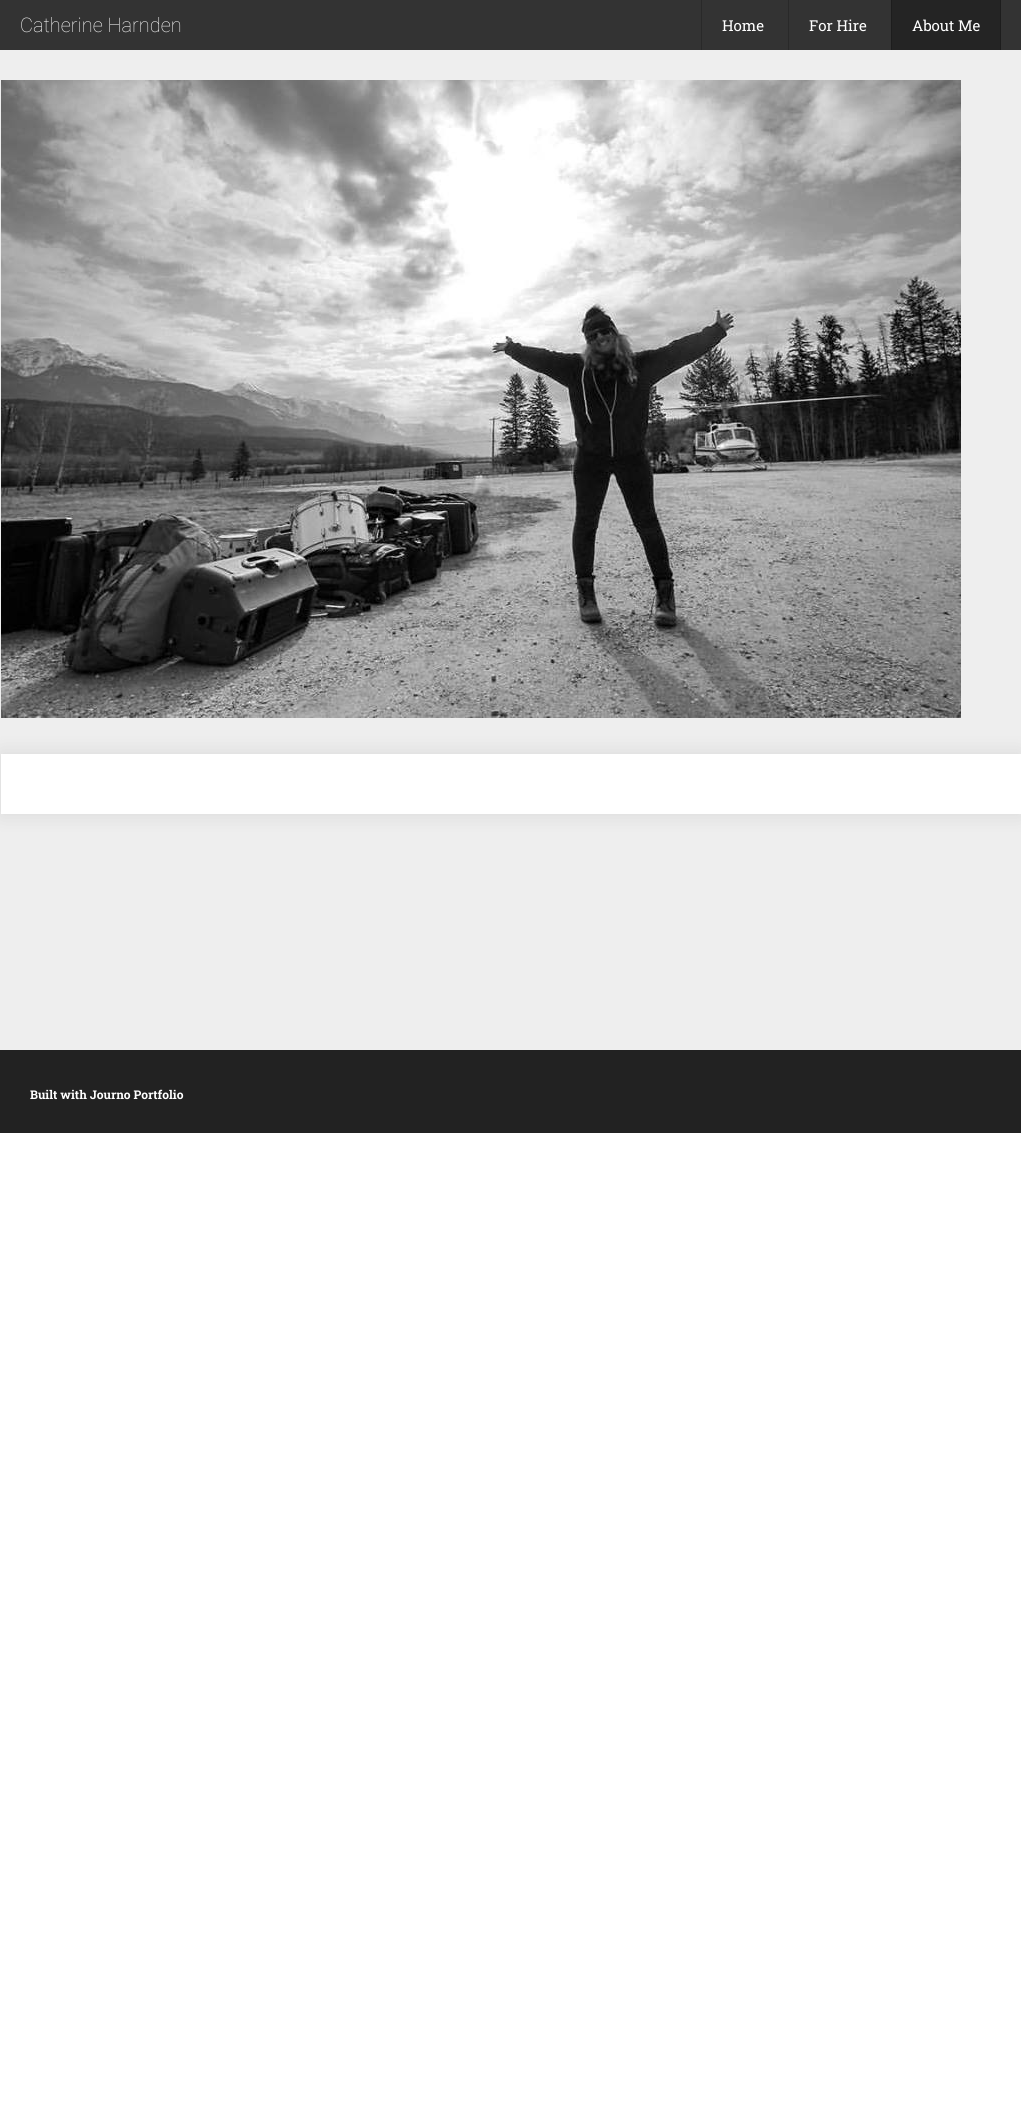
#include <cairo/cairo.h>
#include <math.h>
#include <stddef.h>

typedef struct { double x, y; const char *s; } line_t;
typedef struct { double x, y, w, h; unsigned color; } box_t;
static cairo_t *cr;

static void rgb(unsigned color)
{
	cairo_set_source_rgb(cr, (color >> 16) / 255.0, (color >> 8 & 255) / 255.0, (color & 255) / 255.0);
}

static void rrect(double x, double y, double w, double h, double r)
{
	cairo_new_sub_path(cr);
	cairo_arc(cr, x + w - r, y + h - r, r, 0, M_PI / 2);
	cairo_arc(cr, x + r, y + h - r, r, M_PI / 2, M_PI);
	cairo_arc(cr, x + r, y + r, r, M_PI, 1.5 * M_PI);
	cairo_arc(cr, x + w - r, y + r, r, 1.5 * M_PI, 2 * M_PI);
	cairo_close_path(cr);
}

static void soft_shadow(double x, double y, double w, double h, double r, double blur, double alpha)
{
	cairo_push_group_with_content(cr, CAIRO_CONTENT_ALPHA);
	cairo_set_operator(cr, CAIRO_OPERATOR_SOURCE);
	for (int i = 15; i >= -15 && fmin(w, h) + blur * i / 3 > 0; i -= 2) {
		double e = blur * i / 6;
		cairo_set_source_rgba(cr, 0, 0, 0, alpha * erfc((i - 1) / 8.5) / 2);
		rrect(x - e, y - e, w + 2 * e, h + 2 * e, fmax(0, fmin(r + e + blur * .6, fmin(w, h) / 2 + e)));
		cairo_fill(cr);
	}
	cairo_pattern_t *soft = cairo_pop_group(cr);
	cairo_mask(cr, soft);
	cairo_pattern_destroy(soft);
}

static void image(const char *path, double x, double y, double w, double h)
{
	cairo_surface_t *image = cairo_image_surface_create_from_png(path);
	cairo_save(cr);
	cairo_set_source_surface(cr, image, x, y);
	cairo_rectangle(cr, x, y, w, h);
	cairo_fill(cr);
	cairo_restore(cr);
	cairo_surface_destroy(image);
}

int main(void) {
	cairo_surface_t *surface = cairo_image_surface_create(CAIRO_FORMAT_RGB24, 1021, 2128);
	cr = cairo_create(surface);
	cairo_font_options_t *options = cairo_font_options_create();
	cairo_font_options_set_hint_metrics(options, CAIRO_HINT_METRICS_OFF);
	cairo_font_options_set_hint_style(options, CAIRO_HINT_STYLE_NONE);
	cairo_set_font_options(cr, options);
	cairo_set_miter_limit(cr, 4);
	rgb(0xffffff);
	cairo_paint(cr);
	{
		static const box_t items[] = {
			{0, 0, 1021, 50, 0x333333},
			{701, 0, 1, 50, 0x292929},
			{788, 0, 1, 50, 0x292929},
			{892, 0, 108, 50, 0x242424},
			{1000, 0, 1, 50, 0x1d1d1d},
			{891, 0, 1, 50, 0x1d1d1d},
			{0, 50, 1021, 1000, 0xeeeeee},
		};
		for (size_t i = 0; i < sizeof items / sizeof *items; i++) {
			rgb(items[i].color);
			cairo_rectangle(cr, items[i].x, items[i].y, items[i].w, items[i].h);
			cairo_fill(cr);
		}
	}
	image("img/1.png", 1, 80, 960, 638);
	rgb(0x000000);
	soft_shadow(1, 754, 1020, 60, 0, 10, 0.1);
	rgb(0xffffff);
	cairo_rectangle(cr, 1, 754, 1020, 60);
	cairo_fill(cr);
	rgb(0x222222);
	cairo_rectangle(cr, 0, 1050, 1021, 83);
	cairo_fill(cr);
	cairo_select_font_face(cr, "Roboto Thin", CAIRO_FONT_SLANT_NORMAL, CAIRO_FONT_WEIGHT_NORMAL);
	cairo_set_font_size(cr, 20);
	rgb(0xffffff);
	cairo_move_to(cr, 20, 32);
	cairo_show_text(cr, "Catherine Harnden");
	cairo_select_font_face(cr, "Roboto Slab", CAIRO_FONT_SLANT_NORMAL, CAIRO_FONT_WEIGHT_NORMAL);
	cairo_set_font_size(cr, 15);
	{
		static const line_t items[] = {
			{722, 31, "Home"},
			{809, 31, "For Hire"},
			{912, 31, "About Me"},
		};
		for (size_t i = 0; i < sizeof items / sizeof *items; i++) {
			cairo_move_to(cr, items[i].x, items[i].y);
			cairo_show_text(cr, items[i].s);
		}
	}
	cairo_select_font_face(cr, "Roboto Slab", CAIRO_FONT_SLANT_NORMAL, CAIRO_FONT_WEIGHT_BOLD);
	cairo_set_font_size(cr, 12);
	cairo_move_to(cr, 30, 1099);
	cairo_show_text(cr, "Built with Journo Portfolio");
	cairo_surface_write_to_png(surface, "page.png");
	cairo_font_options_destroy(options);
	cairo_destroy(cr);
	cairo_surface_destroy(surface);
	return 0;
}
